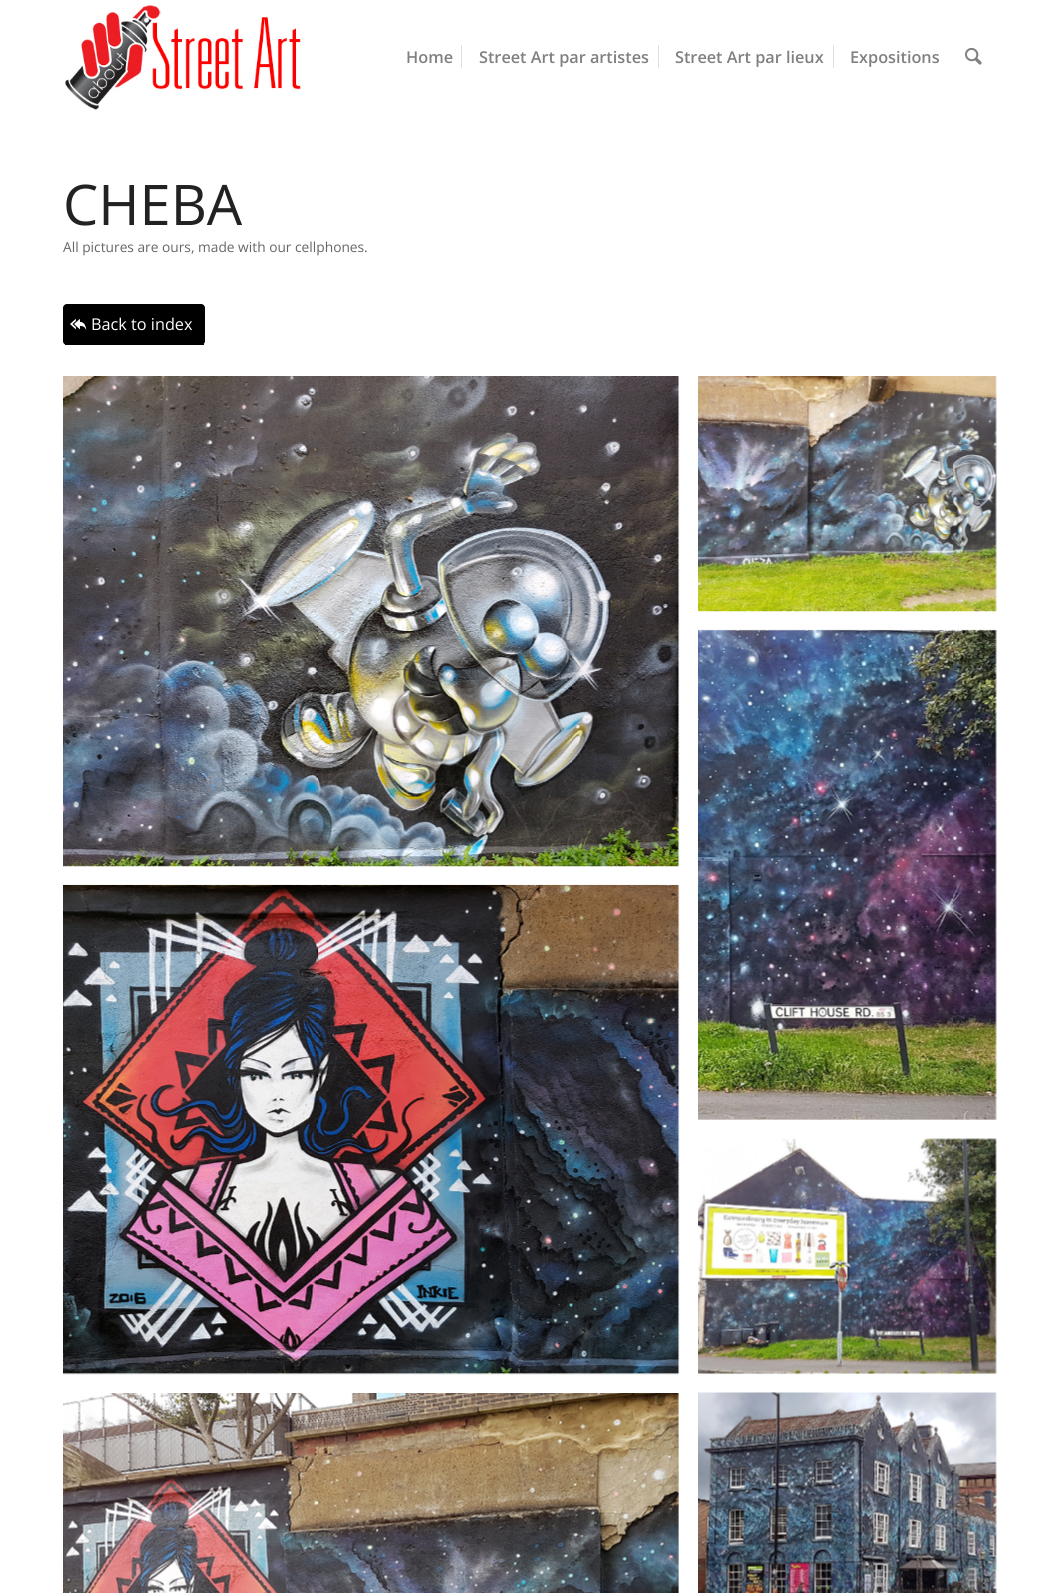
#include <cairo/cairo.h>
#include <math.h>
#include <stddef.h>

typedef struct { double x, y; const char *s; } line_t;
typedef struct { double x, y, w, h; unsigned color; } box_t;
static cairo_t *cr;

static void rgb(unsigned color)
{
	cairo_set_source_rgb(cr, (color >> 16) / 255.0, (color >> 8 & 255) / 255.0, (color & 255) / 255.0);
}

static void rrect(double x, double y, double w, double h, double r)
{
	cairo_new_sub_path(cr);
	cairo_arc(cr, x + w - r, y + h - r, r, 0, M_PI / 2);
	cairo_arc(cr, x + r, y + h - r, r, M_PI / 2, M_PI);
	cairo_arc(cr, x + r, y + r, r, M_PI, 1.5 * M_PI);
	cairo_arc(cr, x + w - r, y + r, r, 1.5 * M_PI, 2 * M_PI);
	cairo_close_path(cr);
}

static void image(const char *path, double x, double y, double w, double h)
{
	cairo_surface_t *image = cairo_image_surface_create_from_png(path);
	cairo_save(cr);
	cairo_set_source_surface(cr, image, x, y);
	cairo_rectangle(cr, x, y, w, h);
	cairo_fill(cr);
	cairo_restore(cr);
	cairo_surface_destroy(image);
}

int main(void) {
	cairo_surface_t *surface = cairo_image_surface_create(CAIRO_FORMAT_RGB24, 1056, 1593);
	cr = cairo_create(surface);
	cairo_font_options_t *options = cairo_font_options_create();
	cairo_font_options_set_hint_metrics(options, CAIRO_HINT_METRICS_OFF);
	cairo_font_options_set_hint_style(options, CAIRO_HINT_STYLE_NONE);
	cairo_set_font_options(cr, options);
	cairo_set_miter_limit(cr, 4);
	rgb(0xffffff);
	cairo_paint(cr);
	image("img/1.png", 65, 5, 236, 105);
	{
		static const box_t items[] = {
			{461, 45, 1, 23, 0xe1e1e1},
			{658, 45, 1, 23, 0xe1e1e1},
			{833, 45, 1, 23, 0xe1e1e1},
		};
		for (size_t i = 0; i < sizeof items / sizeof *items; i++) {
			rgb(items[i].color);
			cairo_rectangle(cr, items[i].x, items[i].y, items[i].w, items[i].h);
			cairo_fill(cr);
		}
	}
	image("img/2.png", 965, 47, 17, 18);
	rgb(0x000000);
	rrect(63, 304, 142, 41, 4);
	cairo_fill(cr);
	cairo_rectangle(cr, 65, 344, 139, 1);
	cairo_fill(cr);
	image("img/3.png", 70, 318, 17, 12);
	image("img/4.png", 63, 376, 617, 491);
	image("img/5.png", 698, 376, 299, 236);
	image("img/6.png", 63, 884, 617, 491);
	image("img/7.png", 698, 629, 299, 491);
	image("img/8.png", 698, 1138, 299, 237);
	image("img/9.png", 63, 1393, 616, 200);
	image("img/10.png", 698, 1392, 299, 201);
	cairo_select_font_face(cr, "Open Sans SemiBold", CAIRO_FONT_SLANT_NORMAL, CAIRO_FONT_WEIGHT_NORMAL);
	cairo_set_font_size(cr, 16.25);
	rgb(0x808080);
	{
		static const line_t items[] = {
			{406, 63, "Home"},
			{479, 63, "Street Art par artistes"},
			{675, 63, "Street Art par lieux"},
			{850, 63, "Expositions"},
		};
		for (size_t i = 0; i < sizeof items / sizeof *items; i++) {
			cairo_move_to(cr, items[i].x, items[i].y);
			cairo_show_text(cr, items[i].s);
		}
	}
	cairo_select_font_face(cr, "Open Sans", CAIRO_FONT_SLANT_NORMAL, CAIRO_FONT_WEIGHT_NORMAL);
	cairo_set_font_size(cr, 56);
	rgb(0x222222);
	cairo_move_to(cr, 63, 225);
	cairo_show_text(cr, "CHEBA");
	cairo_set_font_size(cr, 13.75);
	rgb(0x666666);
	cairo_move_to(cr, 63, 252);
	cairo_show_text(cr, "All pictures are ours, made with our cellphones.");
	cairo_set_font_size(cr, 16.25);
	rgb(0xffffff);
	cairo_move_to(cr, 91, 330);
	cairo_show_text(cr, "Back to index");
	cairo_surface_write_to_png(surface, "page.png");
	cairo_font_options_destroy(options);
	cairo_destroy(cr);
	cairo_surface_destroy(surface);
	return 0;
}
